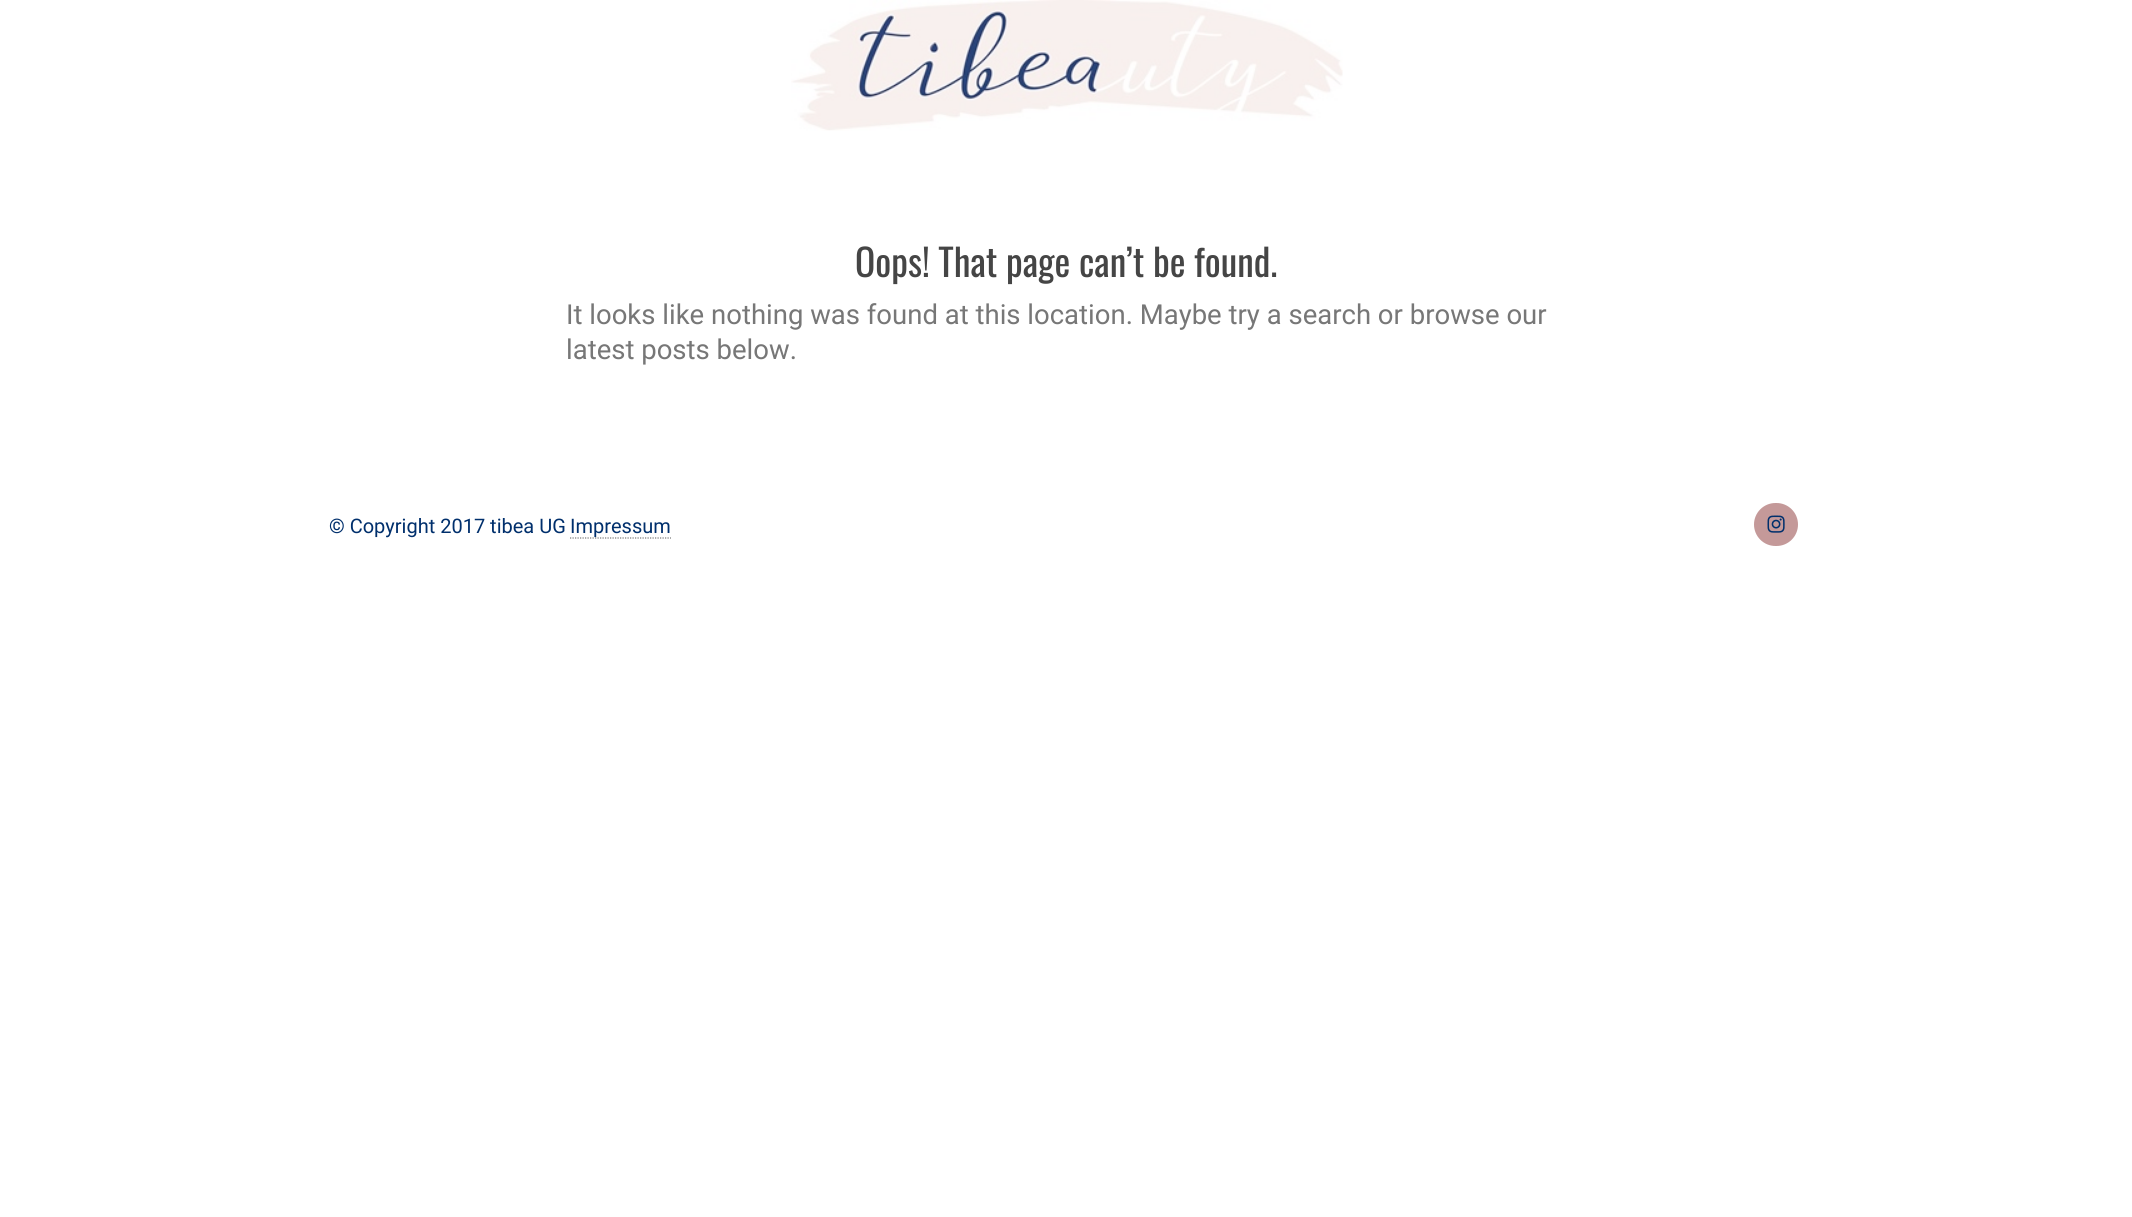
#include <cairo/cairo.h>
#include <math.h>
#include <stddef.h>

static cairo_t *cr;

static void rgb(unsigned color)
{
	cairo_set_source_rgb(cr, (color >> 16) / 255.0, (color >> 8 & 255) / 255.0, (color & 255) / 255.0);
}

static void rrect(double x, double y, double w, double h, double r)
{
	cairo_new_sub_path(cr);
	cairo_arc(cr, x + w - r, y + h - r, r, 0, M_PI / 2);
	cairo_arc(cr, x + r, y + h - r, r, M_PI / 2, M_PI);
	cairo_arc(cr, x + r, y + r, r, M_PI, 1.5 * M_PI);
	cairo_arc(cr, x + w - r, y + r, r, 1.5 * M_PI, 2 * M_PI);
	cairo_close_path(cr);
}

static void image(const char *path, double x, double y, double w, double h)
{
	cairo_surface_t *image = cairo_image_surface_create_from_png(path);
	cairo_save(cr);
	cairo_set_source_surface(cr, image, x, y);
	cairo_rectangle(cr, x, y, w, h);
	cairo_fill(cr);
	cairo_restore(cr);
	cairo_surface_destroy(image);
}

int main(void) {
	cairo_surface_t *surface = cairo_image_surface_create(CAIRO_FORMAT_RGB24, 2132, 1217);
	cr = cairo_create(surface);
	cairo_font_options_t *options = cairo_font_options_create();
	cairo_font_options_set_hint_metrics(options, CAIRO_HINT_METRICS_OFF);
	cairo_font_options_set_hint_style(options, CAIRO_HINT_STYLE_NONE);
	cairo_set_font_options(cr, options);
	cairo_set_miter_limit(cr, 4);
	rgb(0xffffff);
	cairo_paint(cr);
	image("img/1.png", 791, 0, 552, 131);
	cairo_new_path(cr);
	cairo_move_to(cr, 570, 538);
	cairo_line_to(cr, 671, 538);
	rgb(0x777777);
	cairo_set_line_width(cr, 1.2);
	cairo_set_dash(cr, (double[]){1.25, 1.25}, 2, 0);
	cairo_stroke(cr);
	rgb(0xc49999);
	rrect(1754, 503, 44, 43, 21.5);
	cairo_fill(cr);
	image("img/2.png", 1767, 515, 18, 18);
	cairo_select_font_face(cr, "Oswald", CAIRO_FONT_SLANT_NORMAL, CAIRO_FONT_WEIGHT_NORMAL);
	cairo_set_font_size(cr, 37.5);
	rgb(0x454545);
	cairo_move_to(cr, 855, 277);
	cairo_show_text(cr, "Oops! That page can’t be found.");
	cairo_select_font_face(cr, "Roboto", CAIRO_FONT_SLANT_NORMAL, CAIRO_FONT_WEIGHT_NORMAL);
	cairo_set_font_size(cr, 27.5);
	rgb(0x777777);
	cairo_move_to(cr, 566, 324);
	cairo_show_text(cr, "It looks like nothing was found at this location. Maybe try a search or browse our");
	cairo_move_to(cr, 566, 359);
	cairo_show_text(cr, "latest posts below.");
	cairo_set_font_size(cr, 20);
	rgb(0x002f6c);
	cairo_move_to(cr, 329, 533);
	cairo_show_text(cr, "© Copyright 2017 tibea UG");
	cairo_move_to(cr, 570, 533);
	cairo_show_text(cr, "Impressum");
	cairo_surface_write_to_png(surface, "page.png");
	cairo_font_options_destroy(options);
	cairo_destroy(cr);
	cairo_surface_destroy(surface);
	return 0;
}
